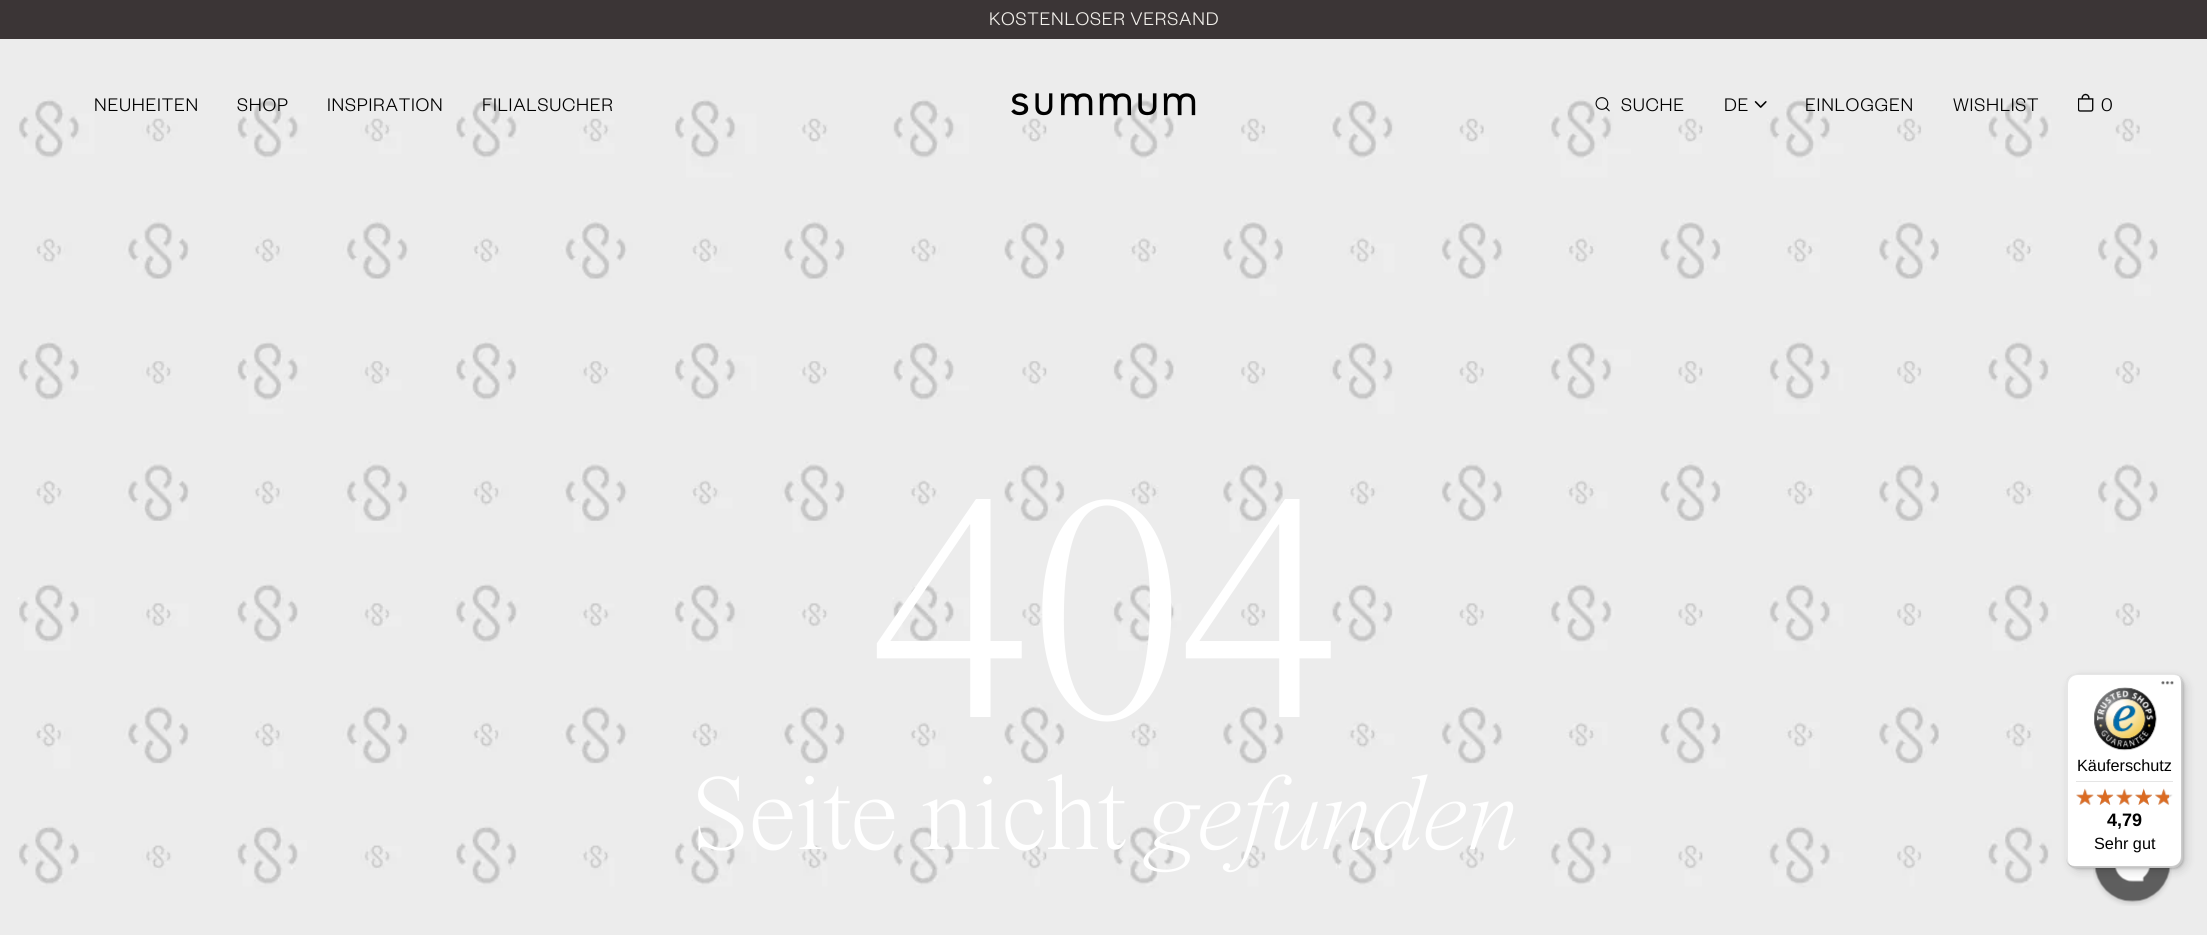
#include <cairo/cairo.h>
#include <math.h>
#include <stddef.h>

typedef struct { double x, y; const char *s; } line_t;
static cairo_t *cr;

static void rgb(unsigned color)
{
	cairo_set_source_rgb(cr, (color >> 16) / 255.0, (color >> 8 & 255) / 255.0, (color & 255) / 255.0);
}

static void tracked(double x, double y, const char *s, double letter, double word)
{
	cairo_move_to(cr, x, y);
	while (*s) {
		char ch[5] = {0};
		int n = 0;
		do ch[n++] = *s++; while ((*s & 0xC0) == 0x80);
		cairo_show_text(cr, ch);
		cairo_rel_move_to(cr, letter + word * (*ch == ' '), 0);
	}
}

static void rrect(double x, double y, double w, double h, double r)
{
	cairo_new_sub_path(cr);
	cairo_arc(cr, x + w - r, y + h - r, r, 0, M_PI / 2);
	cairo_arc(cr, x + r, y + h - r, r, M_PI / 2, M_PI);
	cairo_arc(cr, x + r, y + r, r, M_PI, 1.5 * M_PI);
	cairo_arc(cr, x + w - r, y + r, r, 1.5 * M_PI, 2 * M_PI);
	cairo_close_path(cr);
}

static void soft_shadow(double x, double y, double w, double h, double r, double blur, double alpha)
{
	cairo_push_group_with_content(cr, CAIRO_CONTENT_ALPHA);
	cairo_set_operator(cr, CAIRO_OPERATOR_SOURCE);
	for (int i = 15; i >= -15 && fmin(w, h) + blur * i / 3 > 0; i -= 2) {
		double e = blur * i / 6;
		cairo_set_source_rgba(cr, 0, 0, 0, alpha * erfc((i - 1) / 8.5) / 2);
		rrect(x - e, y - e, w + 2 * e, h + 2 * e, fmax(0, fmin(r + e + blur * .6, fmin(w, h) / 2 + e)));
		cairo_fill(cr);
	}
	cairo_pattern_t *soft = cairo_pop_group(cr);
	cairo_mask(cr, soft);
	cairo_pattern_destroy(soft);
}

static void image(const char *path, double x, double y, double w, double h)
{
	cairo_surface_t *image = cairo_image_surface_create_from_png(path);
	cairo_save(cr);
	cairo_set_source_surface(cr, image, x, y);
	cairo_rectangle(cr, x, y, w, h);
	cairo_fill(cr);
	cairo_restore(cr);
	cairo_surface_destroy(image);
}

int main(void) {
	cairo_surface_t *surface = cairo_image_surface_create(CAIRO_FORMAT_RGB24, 2207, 935);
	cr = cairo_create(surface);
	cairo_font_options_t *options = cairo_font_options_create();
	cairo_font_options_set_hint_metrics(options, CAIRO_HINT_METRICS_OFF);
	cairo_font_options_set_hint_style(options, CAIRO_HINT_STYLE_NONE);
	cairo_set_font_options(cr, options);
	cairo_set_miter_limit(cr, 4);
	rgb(0xffffff);
	cairo_paint(cr);
	rgb(0x3b3536);
	cairo_rectangle(cr, 0, 0, 2207, 39);
	cairo_fill(cr);
	image("img/5.png", 0, 39, 2207, 896);
	image("img/1.png", 1011, 93, 185, 23);
	image("img/2.png", 1595, 97, 15, 15);
	image("img/3.png", 1754, 101, 13, 7);
	image("img/4.png", 2078, 93, 16, 19);
	image("img/18.png", 2093, 868, 79, 38);
	rgb(0x000000);
	soft_shadow(2070, 678, 116, 193, 10, 5, 0.15);
	soft_shadow(2068, 675, 116, 194, 10, 1, 0.15);
	rgb(0xffffff);
	rrect(2066, 674, 117, 194, 10);
	cairo_fill(cr);
	cairo_set_source_rgba(cr, 0, 0, 0, 0.1);
	cairo_new_path(cr);
	cairo_move_to(cr, 2078, 675);
	cairo_line_to(cr, 2174, 675);
	cairo_curve_to(cr, 2176, 675, 2179, 676, 2181, 678);
	cairo_curve_to(cr, 2179, 675, 2176, 674, 2173, 674);
	cairo_line_to(cr, 2076, 674);
	cairo_curve_to(cr, 2070, 674, 2066, 678, 2066, 684);
	cairo_line_to(cr, 2066, 858);
	cairo_curve_to(cr, 2066, 862, 2069, 866, 2073, 867);
	cairo_curve_to(cr, 2070, 866, 2068, 862, 2068, 859);
	cairo_line_to(cr, 2068, 685);
	cairo_curve_to(cr, 2068, 679, 2072, 675, 2078, 675);
	cairo_close_path(cr);
	cairo_fill(cr);
	cairo_set_source_rgba(cr, 0, 0, 0, 0.2);
	cairo_new_path(cr);
	cairo_move_to(cr, 2067, 862);
	cairo_curve_to(cr, 2069, 866, 2072, 868, 2076, 868);
	cairo_line_to(cr, 2173, 868);
	cairo_curve_to(cr, 2179, 868, 2183, 864, 2183, 858);
	cairo_line_to(cr, 2183, 684);
	cairo_curve_to(cr, 2183, 681, 2181, 678, 2179, 676);
	cairo_curve_to(cr, 2180, 678, 2181, 680, 2181, 682);
	cairo_line_to(cr, 2181, 856);
	cairo_curve_to(cr, 2181, 862, 2177, 866, 2171, 866);
	cairo_line_to(cr, 2075, 866);
	cairo_curve_to(cr, 2072, 866, 2069, 865, 2067, 862);
	cairo_close_path(cr);
	cairo_fill(cr);
	cairo_set_source_rgba(cr, 0.196, 0.196, 0.196, 0.2);
	cairo_new_path(cr);
	cairo_move_to(cr, 2066, 857);
	cairo_line_to(cr, 2066, 858);
	cairo_curve_to(cr, 2066, 864, 2070, 868, 2076, 868);
	cairo_line_to(cr, 2173, 868);
	cairo_curve_to(cr, 2179, 868, 2183, 864, 2183, 858);
	cairo_line_to(cr, 2183, 684);
	cairo_curve_to(cr, 2183, 681, 2182, 678, 2180, 676);
	cairo_curve_to(cr, 2181, 678, 2182, 680, 2182, 683);
	cairo_line_to(cr, 2182, 857);
	cairo_curve_to(cr, 2182, 862, 2177, 867, 2172, 867);
	cairo_line_to(cr, 2076, 867);
	cairo_curve_to(cr, 2070, 867, 2066, 862, 2066, 857);
	cairo_close_path(cr);
	cairo_fill(cr);
	cairo_set_source_rgba(cr, 1, 1, 1, 0.3);
	cairo_new_path(cr);
	cairo_move_to(cr, 2066, 857);
	cairo_line_to(cr, 2066, 858);
	cairo_curve_to(cr, 2066, 864, 2070, 868, 2076, 868);
	cairo_line_to(cr, 2173, 868);
	cairo_curve_to(cr, 2179, 868, 2183, 864, 2183, 858);
	cairo_line_to(cr, 2183, 684);
	cairo_curve_to(cr, 2183, 680, 2181, 677, 2178, 675);
	cairo_curve_to(cr, 2180, 677, 2182, 680, 2182, 683);
	cairo_line_to(cr, 2182, 857);
	cairo_curve_to(cr, 2182, 862, 2177, 867, 2172, 867);
	cairo_line_to(cr, 2076, 867);
	cairo_curve_to(cr, 2070, 867, 2066, 862, 2066, 857);
	cairo_close_path(cr);
	cairo_fill(cr);
	image("img/6.png", 2161, 681, 13, 4);
	image("img/7.png", 2094, 687, 63, 64);
	rgb(0xe5e5e5);
	cairo_rectangle(cr, 2076, 781, 97, 1);
	cairo_fill(cr);
	image("img/8.png", 2076, 789, 18, 16);
	image("img/9.png", 2097, 789, 16, 16);
	image("img/10.png", 2116, 789, 17, 16);
	image("img/11.png", 2135, 788, 17, 17);
	image("img/12.png", 2155, 789, 18, 16);
	image("img/13.png", 2076, 788, 18, 17);
	image("img/14.png", 2096, 788, 18, 17);
	image("img/15.png", 2116, 788, 17, 17);
	image("img/16.png", 2135, 788, 17, 17);
	image("img/17.png", 2155, 788, 14, 17);
	cairo_select_font_face(cr, "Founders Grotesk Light", CAIRO_FONT_SLANT_NORMAL, CAIRO_FONT_WEIGHT_NORMAL);
	cairo_set_font_size(cr, 20);
	rgb(0xf2f0eb);
	tracked(989, 25, "KOSTENLOSER VERSAND", 0.75, 0);
	rgb(0x000000);
	{
		static const line_t items[] = {
			{94, 111, "NEUHEITEN"},
			{237, 111, "SHOP"},
			{327, 111, "INSPIRATION"},
			{482, 111, "FILIALSUCHER"},
			{1621, 111, "SUCHE"},
			{1724, 111, "DE"},
			{1805, 111, "EINLOGGEN"},
			{1953, 111, "WISHLIST"},
			{2101, 111, "0"},
		};
		for (size_t i = 0; i < sizeof items / sizeof *items; i++) {
			tracked(items[i].x, items[i].y, items[i].s, 0.75, 0);
		}
	}
	cairo_select_font_face(cr, "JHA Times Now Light", CAIRO_FONT_SLANT_NORMAL, CAIRO_FONT_WEIGHT_NORMAL);
	cairo_set_font_size(cr, 322);
	rgb(0xffffff);
	tracked(872, 717, "404", -6.5, 0);
	cairo_set_font_size(cr, 107.5);
	tracked(690, 849, "Seite nicht", -2.1, 0);
	cairo_select_font_face(cr, "JHA Times Now Light", CAIRO_FONT_SLANT_ITALIC, CAIRO_FONT_WEIGHT_NORMAL);
	tracked(1148, 849, "gefunden", -2.1, 0);
	cairo_select_font_face(cr, "Liberation Sans", CAIRO_FONT_SLANT_NORMAL, CAIRO_FONT_WEIGHT_NORMAL);
	cairo_set_font_size(cr, 16.25);
	rgb(0x000000);
	cairo_move_to(cr, 2077, 771);
	cairo_show_text(cr, "Käuferschutz");
	cairo_select_font_face(cr, "Liberation Sans", CAIRO_FONT_SLANT_NORMAL, CAIRO_FONT_WEIGHT_BOLD);
	cairo_set_font_size(cr, 18);
	cairo_move_to(cr, 2107, 826);
	cairo_show_text(cr, "4,79");
	cairo_select_font_face(cr, "Liberation Sans", CAIRO_FONT_SLANT_NORMAL, CAIRO_FONT_WEIGHT_NORMAL);
	cairo_set_font_size(cr, 16.25);
	cairo_move_to(cr, 2094, 849);
	cairo_show_text(cr, "Sehr gut");
	cairo_surface_write_to_png(surface, "page.png");
	cairo_font_options_destroy(options);
	cairo_destroy(cr);
	cairo_surface_destroy(surface);
	return 0;
}
